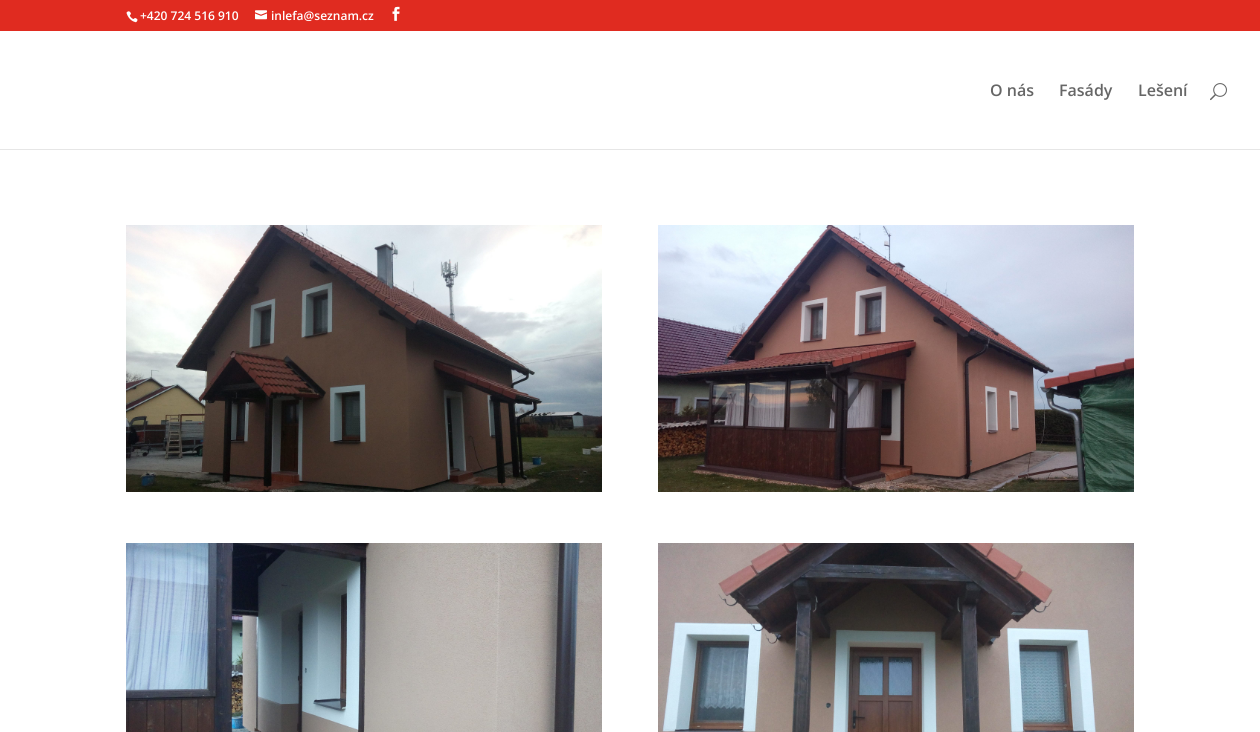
#include <cairo/cairo.h>
#include <math.h>
#include <stddef.h>

typedef struct { double x, y; const char *s; } line_t;
static cairo_t *cr;

static void rgb(unsigned color)
{
	cairo_set_source_rgb(cr, (color >> 16) / 255.0, (color >> 8 & 255) / 255.0, (color & 255) / 255.0);
}

static void image(const char *path, double x, double y, double w, double h)
{
	cairo_surface_t *image = cairo_image_surface_create_from_png(path);
	cairo_save(cr);
	cairo_set_source_surface(cr, image, x, y);
	cairo_rectangle(cr, x, y, w, h);
	cairo_fill(cr);
	cairo_restore(cr);
	cairo_surface_destroy(image);
}

int main(void) {
	cairo_surface_t *surface = cairo_image_surface_create(CAIRO_FORMAT_RGB24, 1260, 732);
	cr = cairo_create(surface);
	cairo_font_options_t *options = cairo_font_options_create();
	cairo_font_options_set_hint_metrics(options, CAIRO_HINT_METRICS_OFF);
	cairo_font_options_set_hint_style(options, CAIRO_HINT_STYLE_NONE);
	cairo_set_font_options(cr, options);
	cairo_set_miter_limit(cr, 4);
	rgb(0xffffff);
	cairo_paint(cr);
	rgb(0xe02b20);
	cairo_rectangle(cr, 0, 0, 1260, 31);
	cairo_fill(cr);
	image("img/1.png", 126, 11, 12, 12);
	image("img/2.png", 255, 10, 12, 10);
	image("img/3.png", 392, 6, 8, 15);
	rgb(0xe6e6e6);
	cairo_rectangle(cr, 0, 149, 1260, 1);
	cairo_fill(cr);
	image("img/4.png", 1210, 83, 17, 18);
	image("img/5.png", 126, 225, 476, 267);
	image("img/6.png", 658, 225, 476, 267);
	image("img/7.png", 126, 543, 476, 189);
	image("img/8.png", 658, 543, 476, 189);
	cairo_select_font_face(cr, "Open Sans SemiBold", CAIRO_FONT_SLANT_NORMAL, CAIRO_FONT_WEIGHT_NORMAL);
	cairo_set_font_size(cr, 12);
	rgb(0xffffff);
	cairo_move_to(cr, 140, 20);
	cairo_show_text(cr, "+420 724 516 910");
	cairo_move_to(cr, 271, 20);
	cairo_show_text(cr, "inlefa@seznam.cz");
	cairo_set_font_size(cr, 16);
	rgb(0x666666);
	{
		static const line_t items[] = {
			{990, 96, "O nás"},
			{1059, 96, "Fasády"},
			{1138, 96, "Lešení"},
		};
		for (size_t i = 0; i < sizeof items / sizeof *items; i++) {
			cairo_move_to(cr, items[i].x, items[i].y);
			cairo_show_text(cr, items[i].s);
		}
	}
	cairo_surface_write_to_png(surface, "page.png");
	cairo_font_options_destroy(options);
	cairo_destroy(cr);
	cairo_surface_destroy(surface);
	return 0;
}
